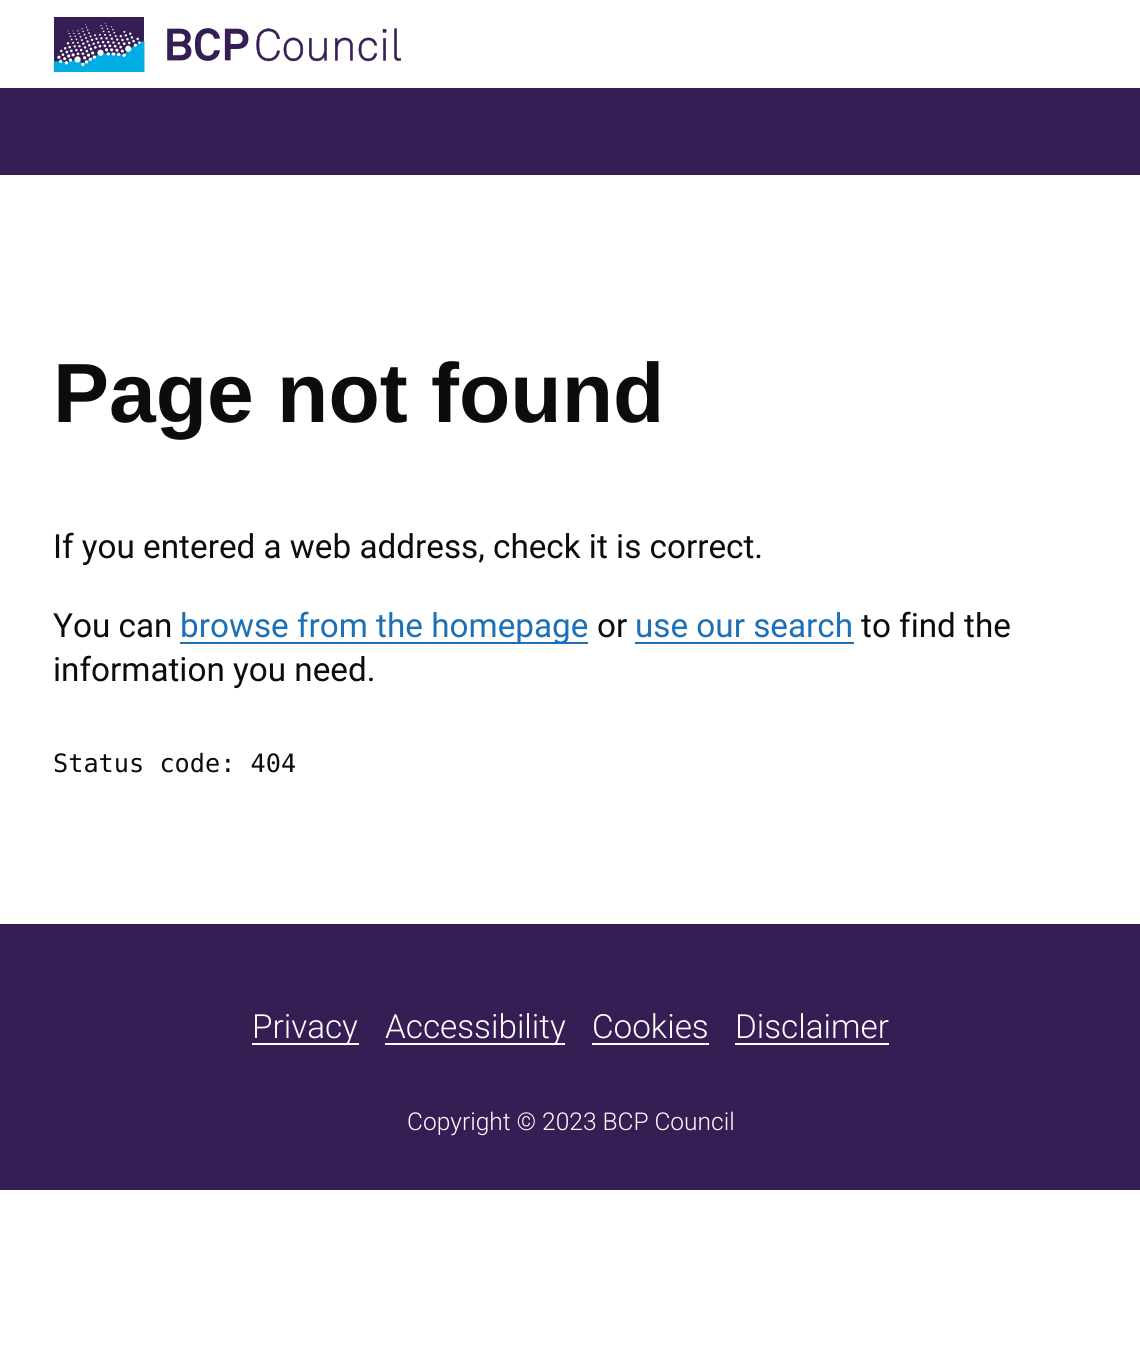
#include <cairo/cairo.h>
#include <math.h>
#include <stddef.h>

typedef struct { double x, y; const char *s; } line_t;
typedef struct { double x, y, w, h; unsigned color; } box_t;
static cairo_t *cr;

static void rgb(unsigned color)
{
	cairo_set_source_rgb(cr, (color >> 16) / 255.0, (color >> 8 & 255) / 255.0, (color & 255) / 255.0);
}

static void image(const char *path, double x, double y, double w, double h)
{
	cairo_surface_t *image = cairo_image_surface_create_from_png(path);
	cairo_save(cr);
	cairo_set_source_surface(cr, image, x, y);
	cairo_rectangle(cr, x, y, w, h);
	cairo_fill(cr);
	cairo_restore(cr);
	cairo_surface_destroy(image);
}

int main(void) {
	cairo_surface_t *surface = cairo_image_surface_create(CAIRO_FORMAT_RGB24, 1140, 1358);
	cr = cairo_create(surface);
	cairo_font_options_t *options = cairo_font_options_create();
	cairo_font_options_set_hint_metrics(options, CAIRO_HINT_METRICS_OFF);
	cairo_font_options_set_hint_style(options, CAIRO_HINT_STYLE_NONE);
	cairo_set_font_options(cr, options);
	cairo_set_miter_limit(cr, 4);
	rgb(0xffffff);
	cairo_paint(cr);
	image("img/1.png", 53, 17, 349, 55);
	{
		static const box_t items[] = {
			{0, 88, 1140, 87, 0x361e54},
			{180, 642, 408, 2, 0x1d70b8},
			{635, 642, 219, 2, 0x1d70b8},
			{0, 924, 1140, 266, 0x361e54},
			{252, 1043, 107, 2, 0xffffff},
			{385, 1043, 180, 2, 0xffffff},
			{592, 1043, 117, 2, 0xffffff},
			{735, 1043, 154, 2, 0xffffff},
		};
		for (size_t i = 0; i < sizeof items / sizeof *items; i++) {
			rgb(items[i].color);
			cairo_rectangle(cr, items[i].x, items[i].y, items[i].w, items[i].h);
			cairo_fill(cr);
		}
	}
	cairo_select_font_face(cr, "Liberation Sans", CAIRO_FONT_SLANT_NORMAL, CAIRO_FONT_WEIGHT_BOLD);
	cairo_set_font_size(cr, 84);
	rgb(0x0b0c0c);
	cairo_move_to(cr, 53, 422);
	cairo_show_text(cr, "Page not found");
	cairo_select_font_face(cr, "Roboto", CAIRO_FONT_SLANT_NORMAL, CAIRO_FONT_WEIGHT_NORMAL);
	cairo_set_font_size(cr, 33.25);
	cairo_move_to(cr, 53, 558);
	cairo_show_text(cr, "If you entered a web address, check it is correct.");
	cairo_move_to(cr, 53, 637);
	cairo_show_text(cr, "You can");
	rgb(0x1d70b8);
	cairo_move_to(cr, 180, 637);
	cairo_show_text(cr, "browse from the homepage");
	rgb(0x0b0c0c);
	cairo_move_to(cr, 597, 637);
	cairo_show_text(cr, "or");
	rgb(0x1d70b8);
	cairo_move_to(cr, 635, 637);
	cairo_show_text(cr, "use our search");
	rgb(0x0b0c0c);
	cairo_move_to(cr, 861, 637);
	cairo_show_text(cr, "to find the");
	cairo_move_to(cr, 53, 681);
	cairo_show_text(cr, "information you need.");
	cairo_select_font_face(cr, "DejaVu Sans Mono", CAIRO_FONT_SLANT_NORMAL, CAIRO_FONT_WEIGHT_NORMAL);
	cairo_set_font_size(cr, 25.25);
	cairo_move_to(cr, 53, 772);
	cairo_show_text(cr, "Status code: 404");
	cairo_select_font_face(cr, "Roboto Light", CAIRO_FONT_SLANT_NORMAL, CAIRO_FONT_WEIGHT_NORMAL);
	cairo_set_font_size(cr, 33.25);
	rgb(0xffffff);
	{
		static const line_t items[] = {
			{252, 1038, "Privacy"},
			{385, 1038, "Accessibility"},
			{592, 1038, "Cookies"},
			{735, 1038, "Disclaimer"},
		};
		for (size_t i = 0; i < sizeof items / sizeof *items; i++) {
			cairo_move_to(cr, items[i].x, items[i].y);
			cairo_show_text(cr, items[i].s);
		}
	}
	cairo_set_font_size(cr, 24.5);
	cairo_move_to(cr, 407, 1130);
	cairo_show_text(cr, "Copyright © 2023 BCP Council");
	cairo_surface_write_to_png(surface, "page.png");
	cairo_font_options_destroy(options);
	cairo_destroy(cr);
	cairo_surface_destroy(surface);
	return 0;
}
